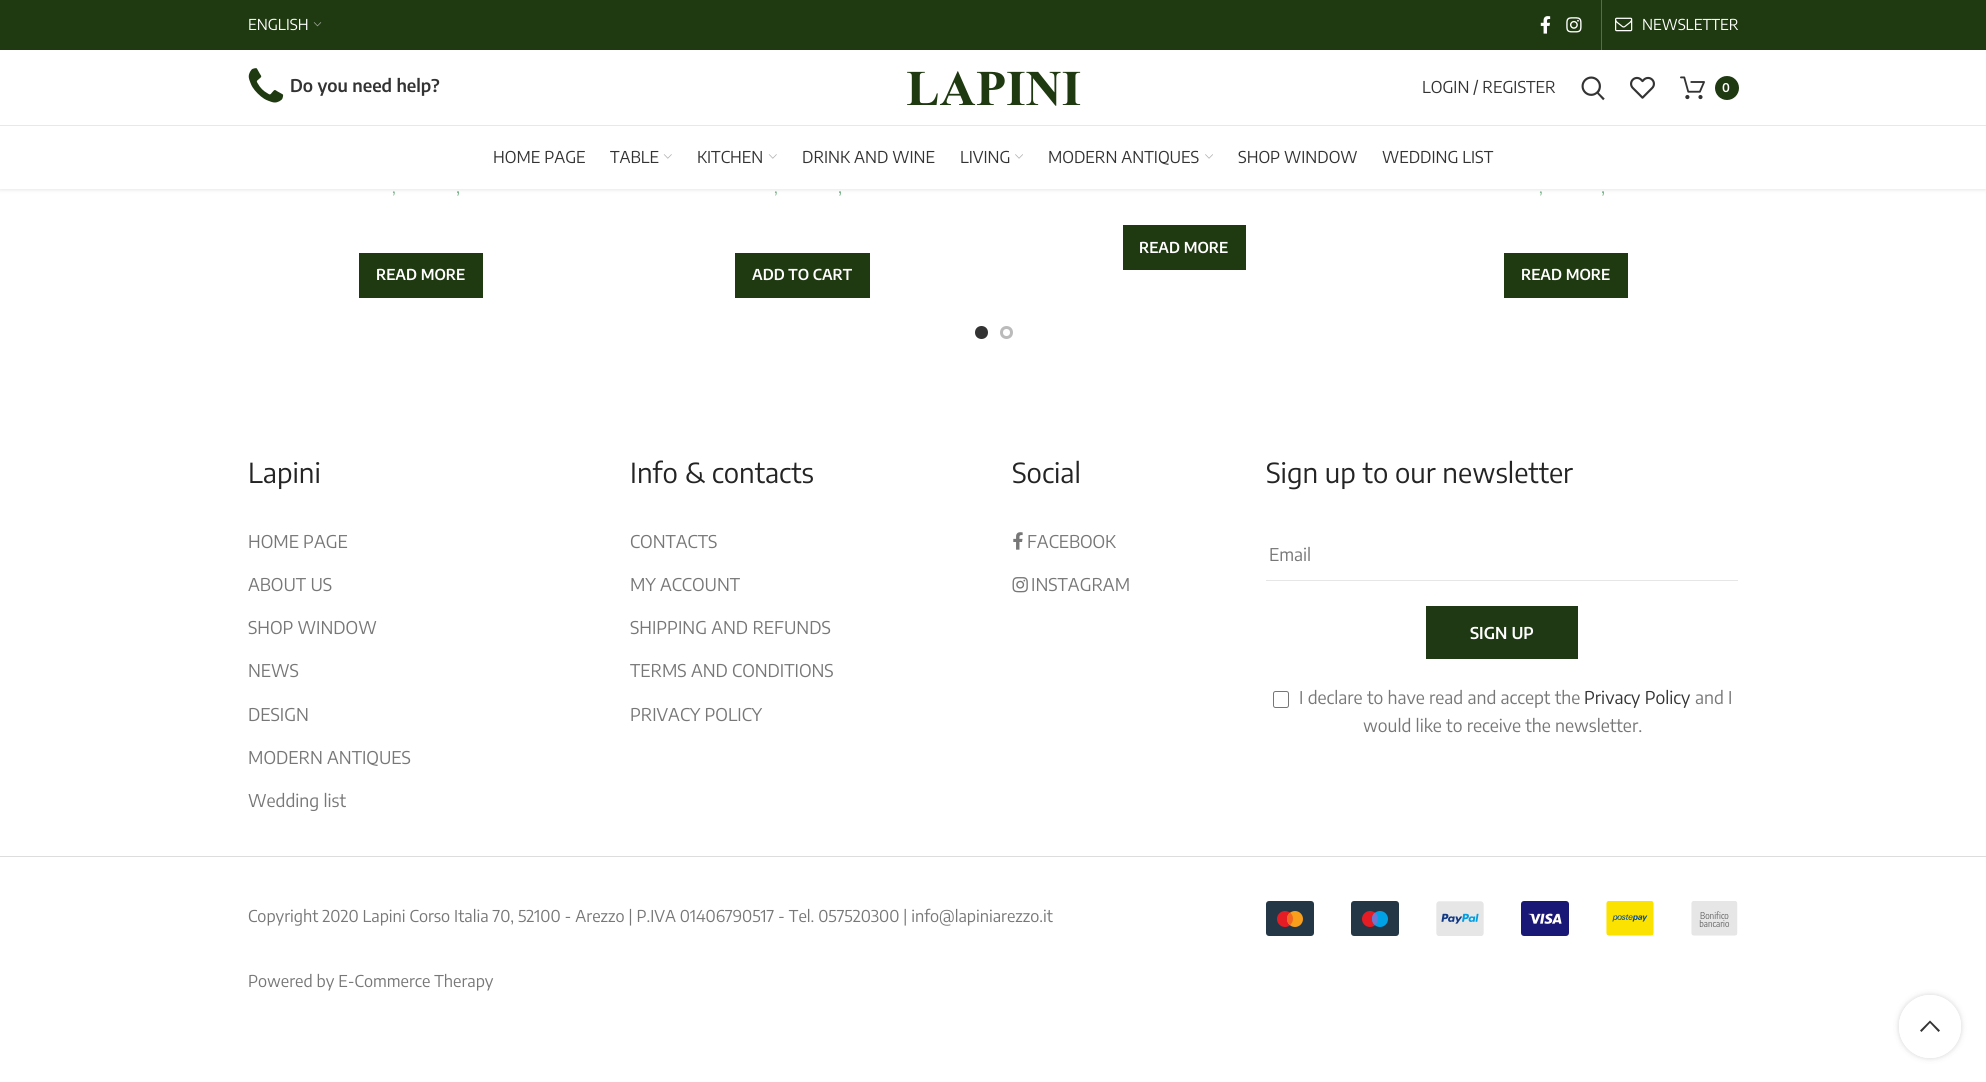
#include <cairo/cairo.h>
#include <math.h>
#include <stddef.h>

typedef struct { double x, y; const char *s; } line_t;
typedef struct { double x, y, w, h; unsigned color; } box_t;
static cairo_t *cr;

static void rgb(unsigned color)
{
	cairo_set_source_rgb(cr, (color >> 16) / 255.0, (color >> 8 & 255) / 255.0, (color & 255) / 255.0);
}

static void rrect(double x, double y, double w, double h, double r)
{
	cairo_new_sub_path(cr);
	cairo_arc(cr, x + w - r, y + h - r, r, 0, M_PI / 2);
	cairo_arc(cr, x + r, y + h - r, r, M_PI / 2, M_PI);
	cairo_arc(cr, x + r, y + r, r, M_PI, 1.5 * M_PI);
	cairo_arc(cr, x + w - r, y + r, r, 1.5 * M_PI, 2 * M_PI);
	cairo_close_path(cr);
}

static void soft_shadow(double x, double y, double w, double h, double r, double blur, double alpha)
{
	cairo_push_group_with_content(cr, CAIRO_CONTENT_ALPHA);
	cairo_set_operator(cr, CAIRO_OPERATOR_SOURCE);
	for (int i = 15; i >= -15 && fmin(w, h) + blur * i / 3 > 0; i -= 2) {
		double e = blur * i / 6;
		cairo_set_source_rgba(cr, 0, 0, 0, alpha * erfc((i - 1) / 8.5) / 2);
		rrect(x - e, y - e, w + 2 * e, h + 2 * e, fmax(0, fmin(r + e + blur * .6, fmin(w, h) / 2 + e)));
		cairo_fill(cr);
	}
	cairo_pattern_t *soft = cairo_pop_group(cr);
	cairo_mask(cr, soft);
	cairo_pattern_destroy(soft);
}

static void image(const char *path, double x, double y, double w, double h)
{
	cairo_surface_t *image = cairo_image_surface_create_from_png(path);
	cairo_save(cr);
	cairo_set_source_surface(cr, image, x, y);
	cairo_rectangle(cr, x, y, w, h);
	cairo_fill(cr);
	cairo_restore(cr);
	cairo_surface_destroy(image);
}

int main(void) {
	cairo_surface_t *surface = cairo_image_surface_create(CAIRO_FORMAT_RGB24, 1986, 1082);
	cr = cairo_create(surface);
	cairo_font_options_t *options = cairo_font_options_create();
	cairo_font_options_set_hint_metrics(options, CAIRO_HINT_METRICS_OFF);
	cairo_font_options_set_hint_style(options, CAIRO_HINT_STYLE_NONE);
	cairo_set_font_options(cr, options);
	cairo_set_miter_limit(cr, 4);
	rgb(0xffffff);
	cairo_paint(cr);
	rgb(0x000000);
	soft_shadow(0, 1, 1986, 189, 0, 2, 0.1);
	rgb(0x1f3911);
	cairo_rectangle(cr, 0, 0, 1986, 50);
	cairo_fill(cr);
	image("img/1.png", 313, 22, 9, 5);
	image("img/2.png", 1540, 16, 11, 18);
	image("img/3.png", 1566, 17, 16, 16);
	rgb(0x576b4d);
	cairo_rectangle(cr, 1601, 0, 1, 50);
	cairo_fill(cr);
	image("img/4.png", 1615, 17, 18, 15);
	rgb(0xffffff);
	cairo_rectangle(cr, 0, 50, 1986, 75);
	cairo_fill(cr);
	rgb(0xe8e8e8);
	cairo_rectangle(cr, 0, 125, 1986, 1);
	cairo_fill(cr);
	image("img/5.png", 248, 68, 36, 35);
	image("img/6.png", 907, 71, 174, 35);
	image("img/7.png", 1581, 76, 24, 25);
	image("img/8.png", 1630, 76, 25, 23);
	image("img/9.png", 1680, 76, 25, 24);
	rgb(0x1f3911);
	cairo_arc(cr, 1727, 88, 12, 0, 2 * M_PI);
	cairo_fill(cr);
	rgb(0xffffff);
	cairo_rectangle(cr, 0, 126, 1986, 63);
	cairo_fill(cr);
	image("img/10.png", 663, 154, 9, 5);
	image("img/10.png", 768, 154, 9, 5);
	image("img/11.png", 1015, 154, 8, 5);
	image("img/11.png", 1205, 154, 8, 5);
	{
		static const box_t items[] = {
			{359, 253, 124, 45, 0x1f3911},
			{735, 253, 135, 45, 0x1f3911},
			{1123, 225, 123, 45, 0x1f3911},
			{1504, 253, 124, 45, 0x1f3911},
		};
		for (size_t i = 0; i < sizeof items / sizeof *items; i++) {
			rgb(items[i].color);
			cairo_rectangle(cr, items[i].x, items[i].y, items[i].w, items[i].h);
			cairo_fill(cr);
		}
	}
	rgb(0x333333);
	cairo_arc(cr, 981.5, 332.5, 5, 0, 2 * M_PI);
	cairo_fill_preserve(cr);
	cairo_set_line_width(cr, 3);
	cairo_stroke(cr);
	cairo_arc(cr, 1006.5, 332.5, 5, 0, 2 * M_PI);
	rgb(0xbbbbbb);
	cairo_stroke(cr);
	image("img/12.png", 1013, 532, 10, 18);
	image("img/13.png", 1012, 577, 16, 16);
	rgb(0xe6e6e6);
	cairo_rectangle(cr, 1266, 580, 472, 1);
	cairo_fill(cr);
	rgb(0x1f3914);
	cairo_rectangle(cr, 1426, 606, 152, 53);
	cairo_fill(cr);
	rrect(1273.5, 691.5, 15, 16, 2);
	rgb(0x767676);
	cairo_set_line_width(cr, 1);
	cairo_stroke(cr);
	rgb(0xdddddd);
	cairo_rectangle(cr, 0, 856, 1986, 1);
	cairo_fill(cr);
	rgb(0x243747);
	rrect(1266, 901, 48, 35, 3);
	cairo_fill(cr);
	rgb(0xe61c24);
	cairo_arc(cr, 1285, 919, 8, 0, 2 * M_PI);
	cairo_fill(cr);
	rgb(0xf99f1b);
	cairo_arc(cr, 1295, 919, 8, 0, 2 * M_PI);
	cairo_fill(cr);
	rgb(0xf26622);
	cairo_new_path(cr);
	cairo_move_to(cr, 1290, 912.5);
	cairo_curve_to(cr, 1286, 915.5, 1286, 922, 1290, 925);
	cairo_curve_to(cr, 1294, 922, 1294, 915.5, 1290, 912.5);
	cairo_close_path(cr);
	cairo_fill(cr);
	rgb(0x243747);
	rrect(1351, 901, 48, 35, 3);
	cairo_fill(cr);
	rgb(0xe61c24);
	cairo_arc(cr, 1370, 919, 8, 0, 2 * M_PI);
	cairo_fill(cr);
	rgb(0x00a2e5);
	cairo_arc(cr, 1380, 919, 8, 0, 2 * M_PI);
	cairo_fill(cr);
	rgb(0x7375cf);
	cairo_new_path(cr);
	cairo_move_to(cr, 1375, 912.5);
	cairo_curve_to(cr, 1371, 915.5, 1371, 922, 1375, 925);
	cairo_curve_to(cr, 1379, 922, 1379, 915.5, 1375, 912.5);
	cairo_close_path(cr);
	cairo_fill(cr);
	image("img/14.png", 1436, 901, 48, 35);
	image("img/15.png", 1521, 901, 48, 35);
	image("img/16.png", 1606, 901, 48, 35);
	image("img/17.png", 1691, 901, 47, 35);
	cairo_save(cr);
	cairo_set_fill_rule(cr, CAIRO_FILL_RULE_EVEN_ODD);
	cairo_new_path(cr);
	cairo_move_to(cr, 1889, 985);
	cairo_line_to(cr, 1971, 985);
	cairo_line_to(cr, 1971, 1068);
	cairo_line_to(cr, 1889, 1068);
	cairo_close_path(cr);
	cairo_move_to(cr, 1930, 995);
	cairo_curve_to(cr, 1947, 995, 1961, 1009, 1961, 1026);
	cairo_line_to(cr, 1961, 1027);
	cairo_curve_to(cr, 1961, 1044, 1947, 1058, 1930, 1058);
	cairo_curve_to(cr, 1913, 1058, 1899, 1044, 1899, 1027);
	cairo_line_to(cr, 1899, 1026);
	cairo_curve_to(cr, 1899, 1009, 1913, 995, 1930, 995);
	cairo_close_path(cr);
	cairo_clip(cr);
	rgb(0x000000);
	soft_shadow(1899, 995, 62, 63, 31, 3, 0.17);
	cairo_restore(cr);
	cairo_set_source_rgba(cr, 1, 1, 1, 0.9);
	rrect(1899, 995, 62, 63, 31);
	cairo_fill(cr);
	rgb(0x333333);
	cairo_new_path(cr);
	cairo_move_to(cr, 1930, 1020.5);
	cairo_line_to(cr, 1940, 1030.5);
	cairo_line_to(cr, 1938.5, 1032);
	cairo_line_to(cr, 1930, 1023);
	cairo_line_to(cr, 1921.5, 1032);
	cairo_line_to(cr, 1920, 1030.5);
	cairo_close_path(cr);
	cairo_fill(cr);
	cairo_select_font_face(cr, "Encode Sans Condensed", CAIRO_FONT_SLANT_NORMAL, CAIRO_FONT_WEIGHT_NORMAL);
	cairo_set_font_size(cr, 15);
	rgb(0xffffff);
	cairo_move_to(cr, 248, 30);
	cairo_show_text(cr, "ENGLISH");
	cairo_move_to(cr, 1642, 30);
	cairo_show_text(cr, "NEWSLETTER");
	cairo_select_font_face(cr, "Encode Sans Condensed SemiBold", CAIRO_FONT_SLANT_NORMAL, CAIRO_FONT_WEIGHT_NORMAL);
	cairo_set_font_size(cr, 17.5);
	rgb(0x333333);
	cairo_move_to(cr, 290, 92);
	cairo_show_text(cr, "Do you need help?");
	cairo_select_font_face(cr, "Encode Sans Condensed", CAIRO_FONT_SLANT_NORMAL, CAIRO_FONT_WEIGHT_NORMAL);
	cairo_set_font_size(cr, 16.25);
	cairo_move_to(cr, 1422, 93);
	cairo_show_text(cr, "LOGIN / REGISTER");
	cairo_select_font_face(cr, "Encode Sans Condensed SemiBold", CAIRO_FONT_SLANT_NORMAL, CAIRO_FONT_WEIGHT_NORMAL);
	cairo_set_font_size(cr, 12);
	rgb(0xffffff);
	cairo_move_to(cr, 1722, 92);
	cairo_show_text(cr, "0");
	cairo_select_font_face(cr, "Encode Sans Condensed", CAIRO_FONT_SLANT_NORMAL, CAIRO_FONT_WEIGHT_NORMAL);
	cairo_set_font_size(cr, 16.25);
	rgb(0x333333);
	{
		static const line_t items[] = {
			{493, 163, "HOME PAGE"},
			{610, 163, "TABLE"},
			{697, 163, "KITCHEN"},
			{802, 163, "DRINK AND WINE"},
			{960, 163, "LIVING"},
			{1048, 163, "MODERN ANTIQUES"},
			{1238, 163, "SHOP WINDOW"},
			{1382, 163, "WEDDING LIST"},
		};
		for (size_t i = 0; i < sizeof items / sizeof *items; i++) {
			cairo_move_to(cr, items[i].x, items[i].y);
			cairo_show_text(cr, items[i].s);
		}
	}
	cairo_set_font_size(cr, 16);
	rgb(0x79b38a);
	cairo_move_to(cr, 392, 193);
	cairo_show_text(cr, ",");
	cairo_set_font_size(cr, 17.5);
	cairo_move_to(cr, 456, 193);
	cairo_show_text(cr, ",");
	cairo_select_font_face(cr, "Encode Sans Condensed SemiBold", CAIRO_FONT_SLANT_NORMAL, CAIRO_FONT_WEIGHT_NORMAL);
	cairo_set_font_size(cr, 15);
	rgb(0xffffff);
	cairo_move_to(cr, 376, 280);
	cairo_show_text(cr, "READ MORE");
	cairo_select_font_face(cr, "Encode Sans Condensed", CAIRO_FONT_SLANT_NORMAL, CAIRO_FONT_WEIGHT_NORMAL);
	cairo_set_font_size(cr, 16);
	rgb(0x79b38a);
	cairo_move_to(cr, 774, 193);
	cairo_show_text(cr, ",");
	cairo_set_font_size(cr, 17.5);
	cairo_move_to(cr, 838, 193);
	cairo_show_text(cr, ",");
	cairo_select_font_face(cr, "Encode Sans Condensed SemiBold", CAIRO_FONT_SLANT_NORMAL, CAIRO_FONT_WEIGHT_NORMAL);
	cairo_set_font_size(cr, 15);
	rgb(0xffffff);
	cairo_move_to(cr, 752, 280);
	cairo_show_text(cr, "ADD TO CART");
	cairo_move_to(cr, 1139, 253);
	cairo_show_text(cr, "READ MORE");
	cairo_select_font_face(cr, "Encode Sans Condensed", CAIRO_FONT_SLANT_NORMAL, CAIRO_FONT_WEIGHT_NORMAL);
	cairo_set_font_size(cr, 16);
	rgb(0x79b38a);
	cairo_move_to(cr, 1539, 193);
	cairo_show_text(cr, ",");
	cairo_set_font_size(cr, 17.5);
	cairo_move_to(cr, 1601, 193);
	cairo_show_text(cr, ",");
	cairo_select_font_face(cr, "Encode Sans Condensed SemiBold", CAIRO_FONT_SLANT_NORMAL, CAIRO_FONT_WEIGHT_NORMAL);
	cairo_set_font_size(cr, 15);
	rgb(0xffffff);
	cairo_move_to(cr, 1521, 280);
	cairo_show_text(cr, "READ MORE");
	cairo_select_font_face(cr, "Encode Sans Condensed", CAIRO_FONT_SLANT_NORMAL, CAIRO_FONT_WEIGHT_NORMAL);
	cairo_set_font_size(cr, 27.5);
	rgb(0x242424);
	cairo_move_to(cr, 248, 483);
	cairo_show_text(cr, "Lapini");
	cairo_set_font_size(cr, 17.5);
	rgb(0x777777);
	{
		static const line_t items[] = {
			{248, 548, "HOME PAGE"},
			{248, 591, "ABOUT US"},
			{248, 634, "SHOP WINDOW"},
			{248, 677, "NEWS"},
			{248, 721, "DESIGN"},
			{248, 764, "MODERN ANTIQUES"},
			{248, 807, "Wedding list"},
		};
		for (size_t i = 0; i < sizeof items / sizeof *items; i++) {
			cairo_move_to(cr, items[i].x, items[i].y);
			cairo_show_text(cr, items[i].s);
		}
	}
	cairo_set_font_size(cr, 27.5);
	rgb(0x242424);
	cairo_move_to(cr, 630, 483);
	cairo_show_text(cr, "Info & contacts");
	cairo_set_font_size(cr, 17.5);
	rgb(0x777777);
	{
		static const line_t items[] = {
			{630, 548, "CONTACTS"},
			{630, 591, "MY ACCOUNT"},
			{630, 634, "SHIPPING AND REFUNDS"},
			{630, 677, "TERMS AND CONDITIONS"},
			{630, 721, "PRIVACY POLICY"},
		};
		for (size_t i = 0; i < sizeof items / sizeof *items; i++) {
			cairo_move_to(cr, items[i].x, items[i].y);
			cairo_show_text(cr, items[i].s);
		}
	}
	cairo_set_font_size(cr, 27.5);
	rgb(0x242424);
	cairo_move_to(cr, 1012, 483);
	cairo_show_text(cr, "Social");
	cairo_set_font_size(cr, 17.5);
	rgb(0x777777);
	cairo_move_to(cr, 1027, 548);
	cairo_show_text(cr, "FACEBOOK");
	cairo_move_to(cr, 1031, 591);
	cairo_show_text(cr, "INSTAGRAM");
	cairo_set_font_size(cr, 27.5);
	rgb(0x242424);
	cairo_move_to(cr, 1266, 483);
	cairo_show_text(cr, "Sign up to our newsletter");
	cairo_set_font_size(cr, 17.5);
	rgb(0x777777);
	cairo_move_to(cr, 1269, 561);
	cairo_show_text(cr, "Email");
	cairo_select_font_face(cr, "Encode Sans Condensed SemiBold", CAIRO_FONT_SLANT_NORMAL, CAIRO_FONT_WEIGHT_NORMAL);
	cairo_set_font_size(cr, 16.25);
	rgb(0xffffff);
	cairo_move_to(cr, 1470, 639);
	cairo_show_text(cr, "SIGN UP");
	cairo_select_font_face(cr, "Encode Sans Condensed", CAIRO_FONT_SLANT_NORMAL, CAIRO_FONT_WEIGHT_NORMAL);
	cairo_set_font_size(cr, 17.5);
	rgb(0x777777);
	cairo_move_to(cr, 1299, 704);
	cairo_show_text(cr, "I declare to have read and accept the");
	rgb(0x333333);
	cairo_move_to(cr, 1584, 704);
	cairo_show_text(cr, "Privacy Policy");
	rgb(0x777777);
	cairo_move_to(cr, 1695, 704);
	cairo_show_text(cr, "and I");
	cairo_move_to(cr, 1363, 732);
	cairo_show_text(cr, "would like to receive the newsletter.");
	cairo_set_font_size(cr, 16.25);
	cairo_move_to(cr, 248, 922);
	cairo_show_text(cr, "Copyright 2020 Lapini Corso Italia 70, 52100 - Arezzo | P.IVA 01406790517 - Tel. 057520300 | info@lapiniarezzo.it");
	cairo_move_to(cr, 248, 987);
	cairo_show_text(cr, "Powered by E-Commerce Therapy");
	cairo_surface_write_to_png(surface, "page.png");
	cairo_font_options_destroy(options);
	cairo_destroy(cr);
	cairo_surface_destroy(surface);
	return 0;
}
